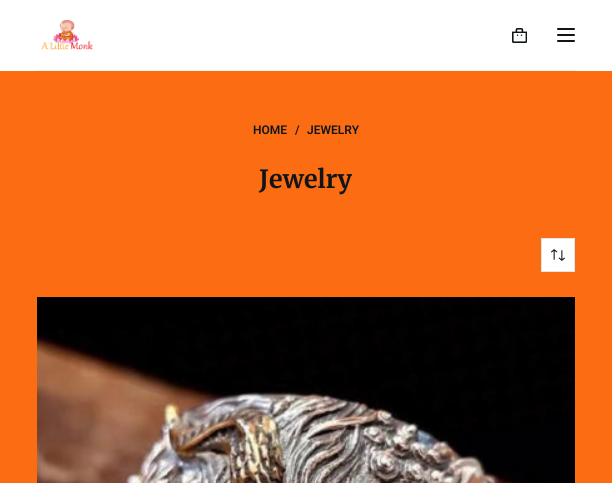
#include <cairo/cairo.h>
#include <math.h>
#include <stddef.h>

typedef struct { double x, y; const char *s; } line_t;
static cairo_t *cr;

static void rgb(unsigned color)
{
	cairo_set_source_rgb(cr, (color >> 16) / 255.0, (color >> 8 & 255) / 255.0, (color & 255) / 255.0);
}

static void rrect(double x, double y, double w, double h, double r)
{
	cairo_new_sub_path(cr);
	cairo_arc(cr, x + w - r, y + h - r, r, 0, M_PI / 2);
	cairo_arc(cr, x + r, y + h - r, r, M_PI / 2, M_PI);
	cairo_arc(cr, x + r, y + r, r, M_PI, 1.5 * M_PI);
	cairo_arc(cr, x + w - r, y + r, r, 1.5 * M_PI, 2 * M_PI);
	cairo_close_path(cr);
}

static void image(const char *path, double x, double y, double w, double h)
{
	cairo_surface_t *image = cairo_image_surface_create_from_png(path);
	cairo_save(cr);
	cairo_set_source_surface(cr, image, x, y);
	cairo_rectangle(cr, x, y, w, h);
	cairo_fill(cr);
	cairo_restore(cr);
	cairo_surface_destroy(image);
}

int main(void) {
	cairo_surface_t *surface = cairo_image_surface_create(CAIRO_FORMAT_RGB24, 612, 483);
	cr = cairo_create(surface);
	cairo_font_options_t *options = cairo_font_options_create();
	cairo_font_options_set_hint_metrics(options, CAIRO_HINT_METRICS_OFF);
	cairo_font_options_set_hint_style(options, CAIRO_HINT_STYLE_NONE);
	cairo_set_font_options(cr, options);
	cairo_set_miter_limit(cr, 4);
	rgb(0xfc6c12);
	cairo_paint(cr);
	rgb(0xffffff);
	cairo_rectangle(cr, 0, 0, 612, 71);
	cairo_fill(cr);
	rgb(0xf2f2f2);
	cairo_rectangle(cr, 37, 70, 538, 1);
	cairo_fill(cr);
	image("img/1.png", 41, 20, 52, 30);
	image("img/2.png", 512, 28, 15, 15);
	rgb(0x111518);
	rrect(557, 28, 18, 2, 1);
	cairo_fill(cr);
	rrect(557, 34, 18, 2, 1);
	cairo_fill(cr);
	rrect(557, 40, 18, 2, 1);
	cairo_fill(cr);
	rgb(0xffffff);
	cairo_rectangle(cr, 541.5, 238.5, 33, 33);
	cairo_fill_preserve(cr);
	rgb(0xe0e5eb);
	cairo_set_line_width(cr, 1);
	cairo_stroke(cr);
	image("img/3.png", 551, 249, 14, 12);
	image("img/4.png", 37, 297, 538, 186);
	cairo_select_font_face(cr, "Roboto SemiBold", CAIRO_FONT_SLANT_NORMAL, CAIRO_FONT_WEIGHT_NORMAL);
	cairo_set_font_size(cr, 12);
	rgb(0x111518);
	{
		static const line_t items[] = {
			{253, 134, "HOME"},
			{295, 134, "/"},
			{307, 134, "JEWELRY"},
		};
		for (size_t i = 0; i < sizeof items / sizeof *items; i++) {
			cairo_move_to(cr, items[i].x, items[i].y);
			cairo_show_text(cr, items[i].s);
		}
	}
	cairo_select_font_face(cr, "Merriweather", CAIRO_FONT_SLANT_NORMAL, CAIRO_FONT_WEIGHT_BOLD);
	cairo_set_font_size(cr, 25);
	cairo_move_to(cr, 259, 188);
	cairo_show_text(cr, "Jewelry");
	cairo_surface_write_to_png(surface, "page.png");
	cairo_font_options_destroy(options);
	cairo_destroy(cr);
	cairo_surface_destroy(surface);
	return 0;
}
